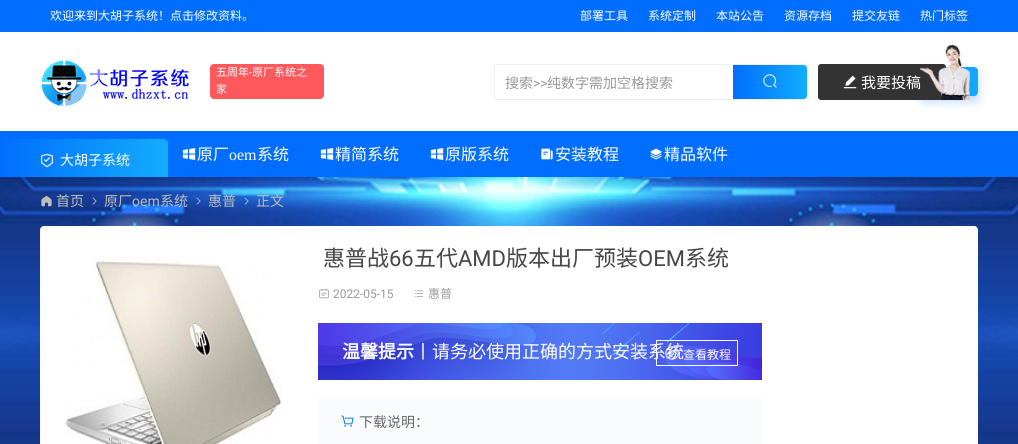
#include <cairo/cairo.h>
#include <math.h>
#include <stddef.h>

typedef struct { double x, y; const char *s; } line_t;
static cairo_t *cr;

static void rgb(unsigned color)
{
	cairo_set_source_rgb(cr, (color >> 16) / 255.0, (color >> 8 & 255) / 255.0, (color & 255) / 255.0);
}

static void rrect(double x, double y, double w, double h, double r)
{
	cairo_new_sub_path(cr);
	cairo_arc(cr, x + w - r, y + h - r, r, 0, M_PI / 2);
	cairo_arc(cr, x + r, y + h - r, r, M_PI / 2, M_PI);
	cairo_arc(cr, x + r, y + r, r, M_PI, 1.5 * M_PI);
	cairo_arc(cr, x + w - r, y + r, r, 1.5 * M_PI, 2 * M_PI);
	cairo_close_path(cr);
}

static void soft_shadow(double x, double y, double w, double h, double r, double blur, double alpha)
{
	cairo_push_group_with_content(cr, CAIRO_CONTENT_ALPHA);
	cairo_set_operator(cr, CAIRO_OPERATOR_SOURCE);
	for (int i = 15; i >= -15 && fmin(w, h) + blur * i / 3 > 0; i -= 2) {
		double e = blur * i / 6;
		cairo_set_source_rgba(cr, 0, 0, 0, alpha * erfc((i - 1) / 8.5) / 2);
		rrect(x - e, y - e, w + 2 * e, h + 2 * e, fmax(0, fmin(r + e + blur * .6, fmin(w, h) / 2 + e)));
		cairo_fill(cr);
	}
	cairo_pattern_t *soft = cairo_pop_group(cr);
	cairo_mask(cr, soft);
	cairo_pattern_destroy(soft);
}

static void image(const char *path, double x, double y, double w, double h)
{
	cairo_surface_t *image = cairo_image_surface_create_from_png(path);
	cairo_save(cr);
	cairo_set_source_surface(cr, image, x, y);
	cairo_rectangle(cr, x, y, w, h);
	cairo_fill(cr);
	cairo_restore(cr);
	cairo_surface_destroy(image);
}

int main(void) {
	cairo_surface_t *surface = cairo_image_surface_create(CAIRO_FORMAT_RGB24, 1018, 444);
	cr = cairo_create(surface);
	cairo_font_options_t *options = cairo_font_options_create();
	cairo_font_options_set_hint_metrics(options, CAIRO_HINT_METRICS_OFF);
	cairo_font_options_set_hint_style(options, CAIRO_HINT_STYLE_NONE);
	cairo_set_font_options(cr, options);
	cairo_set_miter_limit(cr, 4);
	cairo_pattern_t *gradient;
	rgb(0xffffff);
	cairo_paint(cr);
	image("img/1.png", 41, 60, 148, 46);
	cairo_set_source_rgba(cr, 1, 1, 1, 0.5);
	cairo_new_path(cr);
	cairo_move_to(cr, 57, 108);
	cairo_line_to(cr, 155, 9);
	cairo_line_to(cr, 162, 16);
	cairo_line_to(cr, 64, 115);
	cairo_close_path(cr);
	cairo_fill(cr);
	rgb(0x026eff);
	cairo_rectangle(cr, 0, 0, 1018, 32);
	cairo_fill(cr);
	rgb(0xff585d);
	rrect(210, 64, 114, 35, 4);
	cairo_fill(cr);
	rrect(494.5, 64.5, 313, 35, 3.5);
	rgb(0xeeeeee);
	cairo_set_line_width(cr, 1);
	cairo_stroke(cr);
	rgb(0xffffff);
	cairo_new_path(cr);
	cairo_move_to(cr, 498, 65);
	cairo_line_to(cr, 733, 65);
	cairo_line_to(cr, 733, 99);
	cairo_line_to(cr, 498, 99);
	cairo_curve_to(cr, 496.5, 99, 495, 97.5, 495, 96);
	cairo_line_to(cr, 495, 68);
	cairo_curve_to(cr, 495, 66.5, 496.5, 65, 498, 65);
	cairo_close_path(cr);
	cairo_fill(cr);
	gradient = cairo_pattern_create_linear(733, 82, 807, 82);
	cairo_pattern_add_color_stop_rgba(gradient, 0, 0, 0.431, 1, 1);
	cairo_pattern_add_color_stop_rgba(gradient, 1, 0.075, 0.678, 1, 1);
	cairo_set_source(cr, gradient);
	cairo_pattern_destroy(gradient);
	cairo_new_path(cr);
	cairo_move_to(cr, 733, 65);
	cairo_line_to(cr, 804, 65);
	cairo_curve_to(cr, 805.5, 65, 807, 66.5, 807, 68);
	cairo_line_to(cr, 807, 96);
	cairo_curve_to(cr, 807, 97.5, 805.5, 99, 804, 99);
	cairo_line_to(cr, 733, 99);
	cairo_close_path(cr);
	cairo_fill(cr);
	image("img/2.png", 763, 74, 14, 14);
	rgb(0x106efd);
	soft_shadow(920, 72, 58, 29, 4, 5, 0.3);
	gradient = cairo_pattern_create_linear(920, 82, 978, 82);
	cairo_pattern_add_color_stop_rgba(gradient, 0, 0, 0.431, 1, 1);
	cairo_pattern_add_color_stop_rgba(gradient, 1, 0.075, 0.678, 1, 1);
	cairo_set_source(cr, gradient);
	cairo_pattern_destroy(gradient);
	rrect(920, 67, 58, 29, 4);
	cairo_fill(cr);
	rgb(0x333333);
	rrect(818, 64, 128, 36, 3);
	cairo_fill(cr);
	image("img/3.png", 843, 75, 14, 14);
	rgb(0x026eff);
	cairo_rectangle(cr, 0, 131, 1018, 46);
	cairo_fill(cr);
	gradient = cairo_pattern_create_linear(0, 158, 168, 158);
	cairo_pattern_add_color_stop_rgba(gradient, 0, 0, 0.431, 1, 1);
	cairo_pattern_add_color_stop_rgba(gradient, 1, 0.075, 0.678, 1, 1);
	cairo_set_source(cr, gradient);
	cairo_pattern_destroy(gradient);
	cairo_new_path(cr);
	cairo_move_to(cr, 4, 139);
	cairo_line_to(cr, 164, 139);
	cairo_curve_to(cr, 166, 139, 168, 141, 168, 143);
	cairo_line_to(cr, 168, 177);
	cairo_line_to(cr, 0, 177);
	cairo_line_to(cr, 0, 143);
	cairo_curve_to(cr, 0, 141, 2, 139, 4, 139);
	cairo_close_path(cr);
	cairo_fill(cr);
	image("img/5.png", 41, 153, 12, 15);
	image("img/6.png", 182, 148, 14, 12);
	image("img/6.png", 320, 148, 14, 12);
	image("img/6.png", 430, 148, 14, 12);
	image("img/7.png", 541, 148, 12, 12);
	image("img/8.png", 650, 148, 12, 12);
	image("img/9.png", 0, 177, 1018, 267);
	image("img/10.png", 41, 196, 11, 11);
	image("img/11.png", 92, 197, 5, 8);
	image("img/12.png", 196, 197, 5, 8);
	image("img/13.png", 244, 197, 5, 8);
	rgb(0xffffff);
	rrect(40, 226, 938, 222, 4);
	cairo_fill(cr);
	image("img/14.png", 64, 257, 219, 187);
	image("img/15.png", 319, 288, 10, 11);
	image("img/16.png", 415, 290, 8, 7);
	image("img/17.png", 318, 323, 444, 57);
	cairo_rectangle(cr, 656.5, 340.5, 81, 25);
	cairo_stroke(cr);
	rgb(0xfafbfd);
	cairo_rectangle(cr, 318, 396, 444, 48);
	cairo_fill(cr);
	image("img/19.png", 341, 415, 13, 12);
	cairo_select_font_face(cr, "Noto Sans CJK SC", CAIRO_FONT_SLANT_NORMAL, CAIRO_FONT_WEIGHT_NORMAL);
	cairo_set_font_size(cr, 12);
	rgb(0xffffff);
	{
		static const line_t items[] = {
			{50, 20, "欢迎来到大胡子系统！点击修改资料。"},
			{580, 20, "部署工具"},
			{648, 20, "系统定制"},
			{716, 20, "本站公告"},
			{784, 20, "资源存档"},
			{852, 20, "提交友链"},
			{920, 20, "热门标签"},
		};
		for (size_t i = 0; i < sizeof items / sizeof *items; i++) {
			cairo_move_to(cr, items[i].x, items[i].y);
			cairo_show_text(cr, items[i].s);
		}
	}
	cairo_set_font_size(cr, 11);
	cairo_move_to(cr, 216, 76);
	cairo_show_text(cr, "五周年");
	cairo_select_font_face(cr, "Roboto", CAIRO_FONT_SLANT_NORMAL, CAIRO_FONT_WEIGHT_NORMAL);
	cairo_move_to(cr, 249, 76);
	cairo_show_text(cr, "-");
	cairo_select_font_face(cr, "Noto Sans CJK SC", CAIRO_FONT_SLANT_NORMAL, CAIRO_FONT_WEIGHT_NORMAL);
	cairo_move_to(cr, 252, 76);
	cairo_show_text(cr, "原厂系统之");
	cairo_move_to(cr, 216, 93);
	cairo_show_text(cr, "家");
	cairo_set_font_size(cr, 14);
	rgb(0x999999);
	cairo_move_to(cr, 505, 88);
	cairo_show_text(cr, "搜索");
	cairo_select_font_face(cr, "Roboto", CAIRO_FONT_SLANT_NORMAL, CAIRO_FONT_WEIGHT_NORMAL);
	cairo_move_to(cr, 533, 88);
	cairo_show_text(cr, ">>");
	cairo_select_font_face(cr, "Noto Sans CJK SC", CAIRO_FONT_SLANT_NORMAL, CAIRO_FONT_WEIGHT_NORMAL);
	cairo_move_to(cr, 547, 88);
	cairo_show_text(cr, "纯数字需加空格搜索");
	cairo_set_font_size(cr, 15);
	rgb(0xffffff);
	cairo_move_to(cr, 861, 88);
	cairo_show_text(cr, "我要投稿");
	image("img/4.png", 920, 44, 50, 56);
	cairo_set_font_size(cr, 14);
	cairo_move_to(cr, 60, 165);
	cairo_show_text(cr, "大胡子系统");
	cairo_set_font_size(cr, 16);
	cairo_move_to(cr, 197, 160);
	cairo_show_text(cr, "原厂");
	cairo_select_font_face(cr, "Liberation Serif", CAIRO_FONT_SLANT_NORMAL, CAIRO_FONT_WEIGHT_NORMAL);
	cairo_move_to(cr, 229, 160);
	cairo_show_text(cr, "oem");
	cairo_select_font_face(cr, "Noto Sans CJK SC", CAIRO_FONT_SLANT_NORMAL, CAIRO_FONT_WEIGHT_NORMAL);
	{
		static const line_t items[] = {
			{257, 160, "系统"},
			{335, 160, "精简系统"},
			{445, 160, "原版系统"},
			{555, 160, "安装教程"},
			{664, 160, "精品软件"},
		};
		for (size_t i = 0; i < sizeof items / sizeof *items; i++) {
			cairo_move_to(cr, items[i].x, items[i].y);
			cairo_show_text(cr, items[i].s);
		}
	}
	cairo_set_font_size(cr, 14);
	rgb(0xbdbdbd);
	cairo_move_to(cr, 56, 206);
	cairo_show_text(cr, "首页");
	cairo_move_to(cr, 104, 206);
	cairo_show_text(cr, "原厂");
	cairo_select_font_face(cr, "Roboto", CAIRO_FONT_SLANT_NORMAL, CAIRO_FONT_WEIGHT_NORMAL);
	cairo_move_to(cr, 132, 206);
	cairo_show_text(cr, "oem");
	cairo_select_font_face(cr, "Noto Sans CJK SC", CAIRO_FONT_SLANT_NORMAL, CAIRO_FONT_WEIGHT_NORMAL);
	{
		static const line_t items[] = {
			{160, 206, "系统"},
			{208, 206, "惠普"},
			{256, 206, "正文"},
		};
		for (size_t i = 0; i < sizeof items / sizeof *items; i++) {
			cairo_move_to(cr, items[i].x, items[i].y);
			cairo_show_text(cr, items[i].s);
		}
	}
	cairo_set_font_size(cr, 22);
	rgb(0x464646);
	cairo_move_to(cr, 323, 266);
	cairo_show_text(cr, "惠普战");
	cairo_select_font_face(cr, "Roboto", CAIRO_FONT_SLANT_NORMAL, CAIRO_FONT_WEIGHT_NORMAL);
	cairo_move_to(cr, 389, 266);
	cairo_show_text(cr, "66");
	cairo_select_font_face(cr, "Noto Sans CJK SC", CAIRO_FONT_SLANT_NORMAL, CAIRO_FONT_WEIGHT_NORMAL);
	cairo_move_to(cr, 414, 266);
	cairo_show_text(cr, "五代");
	cairo_select_font_face(cr, "Roboto", CAIRO_FONT_SLANT_NORMAL, CAIRO_FONT_WEIGHT_NORMAL);
	cairo_move_to(cr, 458, 266);
	cairo_show_text(cr, "AMD");
	cairo_select_font_face(cr, "Noto Sans CJK SC", CAIRO_FONT_SLANT_NORMAL, CAIRO_FONT_WEIGHT_NORMAL);
	cairo_move_to(cr, 506, 266);
	cairo_show_text(cr, "版本出厂预装");
	cairo_select_font_face(cr, "Roboto", CAIRO_FONT_SLANT_NORMAL, CAIRO_FONT_WEIGHT_NORMAL);
	cairo_move_to(cr, 638, 266);
	cairo_show_text(cr, "OEM");
	cairo_select_font_face(cr, "Noto Sans CJK SC", CAIRO_FONT_SLANT_NORMAL, CAIRO_FONT_WEIGHT_NORMAL);
	cairo_move_to(cr, 685, 266);
	cairo_show_text(cr, "系统");
	cairo_select_font_face(cr, "Roboto", CAIRO_FONT_SLANT_NORMAL, CAIRO_FONT_WEIGHT_NORMAL);
	cairo_set_font_size(cr, 12);
	rgb(0x999999);
	cairo_move_to(cr, 333, 298);
	cairo_show_text(cr, "2022-05-15");
	cairo_select_font_face(cr, "Noto Sans CJK SC", CAIRO_FONT_SLANT_NORMAL, CAIRO_FONT_WEIGHT_NORMAL);
	cairo_move_to(cr, 428, 298);
	cairo_show_text(cr, "惠普");
	cairo_select_font_face(cr, "Noto Sans CJK SC", CAIRO_FONT_SLANT_NORMAL, CAIRO_FONT_WEIGHT_BOLD);
	cairo_set_font_size(cr, 18);
	rgb(0xffffff);
	cairo_move_to(cr, 342, 358);
	cairo_show_text(cr, "温馨提示");
	cairo_select_font_face(cr, "Noto Sans CJK SC", CAIRO_FONT_SLANT_NORMAL, CAIRO_FONT_WEIGHT_NORMAL);
	cairo_move_to(cr, 414, 358);
	cairo_show_text(cr, "丨请务必使用正确的方式安装系统");
	image("img/18.png", 665, 346, 14, 14);
	cairo_set_font_size(cr, 12);
	cairo_move_to(cr, 683, 359);
	cairo_show_text(cr, "查看教程");
	cairo_set_font_size(cr, 14);
	rgb(0x666666);
	cairo_move_to(cr, 359, 427);
	cairo_show_text(cr, "下载说明：");
	cairo_surface_write_to_png(surface, "page.png");
	cairo_font_options_destroy(options);
	cairo_destroy(cr);
	cairo_surface_destroy(surface);
	return 0;
}
